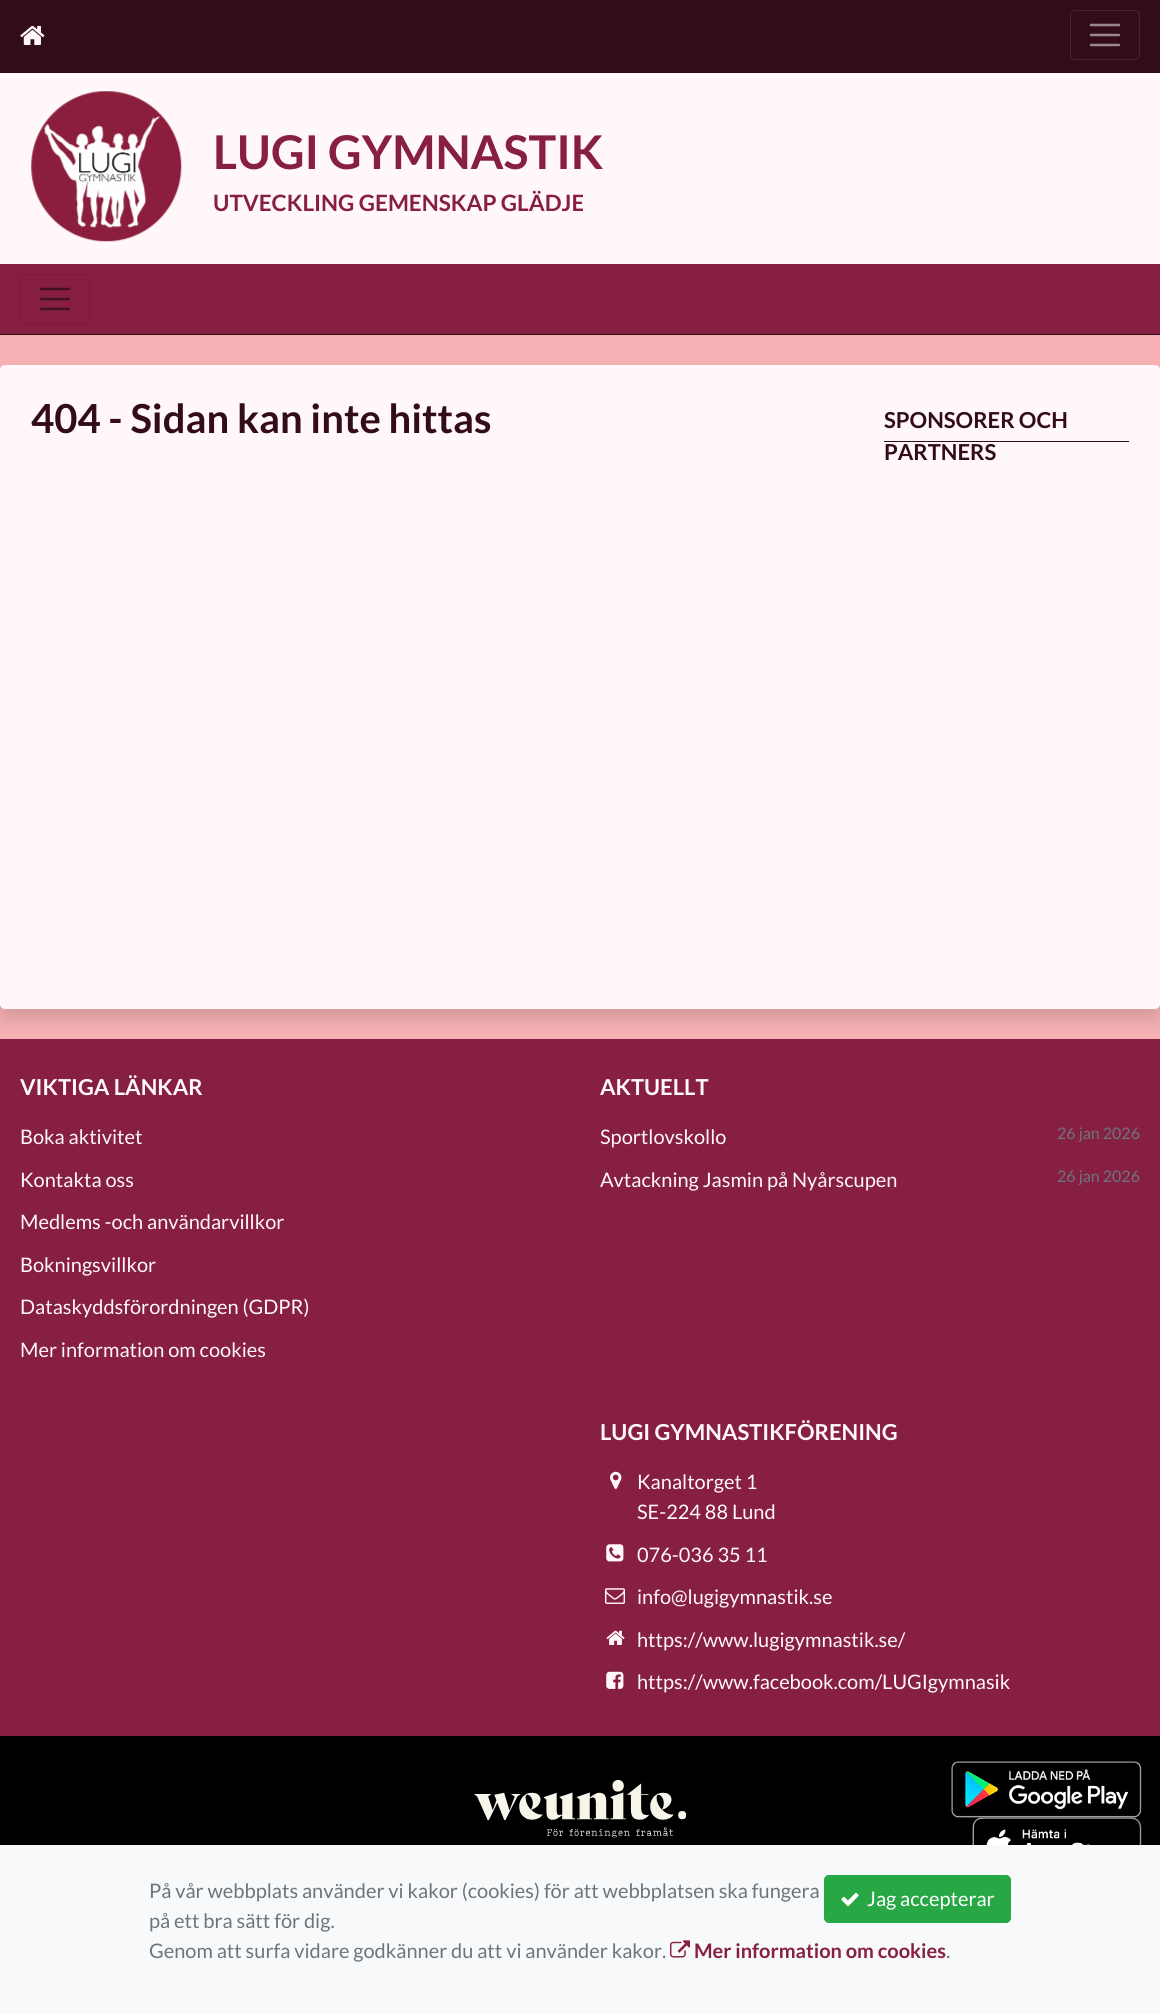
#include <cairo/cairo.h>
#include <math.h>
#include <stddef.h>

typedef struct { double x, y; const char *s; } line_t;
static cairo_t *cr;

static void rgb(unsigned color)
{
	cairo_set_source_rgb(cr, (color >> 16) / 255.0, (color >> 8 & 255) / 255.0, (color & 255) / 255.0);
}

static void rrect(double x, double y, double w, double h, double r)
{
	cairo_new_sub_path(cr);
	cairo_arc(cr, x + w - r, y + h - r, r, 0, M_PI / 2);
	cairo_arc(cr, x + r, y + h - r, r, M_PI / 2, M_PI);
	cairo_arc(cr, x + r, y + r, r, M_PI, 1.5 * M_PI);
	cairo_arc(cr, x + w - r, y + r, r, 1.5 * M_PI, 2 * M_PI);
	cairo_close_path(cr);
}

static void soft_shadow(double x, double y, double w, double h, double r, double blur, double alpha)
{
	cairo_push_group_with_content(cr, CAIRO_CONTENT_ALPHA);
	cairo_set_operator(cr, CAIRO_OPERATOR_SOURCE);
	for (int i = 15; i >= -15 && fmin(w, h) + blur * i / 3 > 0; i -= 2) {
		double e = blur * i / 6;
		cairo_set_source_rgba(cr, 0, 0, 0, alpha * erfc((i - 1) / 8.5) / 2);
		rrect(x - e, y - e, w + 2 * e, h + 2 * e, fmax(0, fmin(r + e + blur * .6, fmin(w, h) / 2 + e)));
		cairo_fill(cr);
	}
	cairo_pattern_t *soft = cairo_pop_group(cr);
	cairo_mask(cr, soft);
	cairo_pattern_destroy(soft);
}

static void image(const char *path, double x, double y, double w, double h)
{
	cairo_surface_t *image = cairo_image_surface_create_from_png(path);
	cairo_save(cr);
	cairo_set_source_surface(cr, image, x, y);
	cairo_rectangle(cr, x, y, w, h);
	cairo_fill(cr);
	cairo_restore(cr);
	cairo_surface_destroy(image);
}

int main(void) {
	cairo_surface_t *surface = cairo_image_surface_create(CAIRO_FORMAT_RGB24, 1160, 2014);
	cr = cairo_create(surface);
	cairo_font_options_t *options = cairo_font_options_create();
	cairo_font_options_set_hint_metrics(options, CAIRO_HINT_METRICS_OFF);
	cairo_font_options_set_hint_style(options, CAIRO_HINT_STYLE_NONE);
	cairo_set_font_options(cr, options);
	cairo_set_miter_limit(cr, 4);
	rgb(0xf7b2b5);
	cairo_paint(cr);
	rgb(0x320c18);
	cairo_rectangle(cr, 0, 0, 1160, 73);
	cairo_fill(cr);
	image("img/1.png", 20, 25, 25, 20);
	rrect(1070.5, 10.5, 69, 49, 4.5);
	rgb(0x47242f);
	cairo_set_line_width(cr, 1);
	cairo_stroke(cr);
	cairo_new_path(cr);
	cairo_move_to(cr, 1091, 25);
	cairo_line_to(cr, 1119, 25);
	cairo_move_to(cr, 1091, 35);
	cairo_line_to(cr, 1119, 35);
	cairo_move_to(cr, 1091, 45);
	cairo_line_to(cr, 1119, 45);
	rgb(0x99868c);
	cairo_set_line_width(cr, 2.5);
	cairo_set_line_cap(cr, CAIRO_LINE_CAP_ROUND);
	cairo_stroke(cr);
	rgb(0xfff7fa);
	cairo_rectangle(cr, 0, 73, 1160, 191);
	cairo_fill(cr);
	image("img/2.png", 31, 91, 151, 151);
	rgb(0x861f41);
	cairo_rectangle(cr, 0, 264, 1160, 70);
	cairo_fill(cr);
	rrect(20.5, 274.5, 69, 49, 4.5);
	rgb(0x791c3b);
	cairo_set_line_width(cr, 1);
	cairo_set_line_cap(cr, CAIRO_LINE_CAP_BUTT);
	cairo_stroke(cr);
	cairo_new_path(cr);
	cairo_move_to(cr, 41, 289);
	cairo_line_to(cr, 69, 289);
	cairo_move_to(cr, 41, 299);
	cairo_line_to(cr, 69, 299);
	cairo_move_to(cr, 41, 309);
	cairo_line_to(cr, 69, 309);
	rgb(0x431021);
	cairo_set_line_width(cr, 2.5);
	cairo_set_line_cap(cr, CAIRO_LINE_CAP_ROUND);
	cairo_stroke(cr);
	rgb(0x320c18);
	cairo_rectangle(cr, 0, 334, 1160, 1);
	cairo_fill(cr);
	rgb(0x000000);
	soft_shadow(0, 375, 1160, 644, 5, 10, 0.15);
	rgb(0xfff7fa);
	rrect(0, 365, 1160, 644, 5);
	cairo_fill(cr);
	rgb(0x320c18);
	cairo_rectangle(cr, 884, 441, 245, 1);
	cairo_fill(cr);
	rgb(0x861f41);
	cairo_rectangle(cr, 0, 1039, 1160, 697);
	cairo_fill(cr);
	image("img/3.png", 610, 1471, 12, 18);
	image("img/4.png", 606, 1544, 18, 18);
	image("img/5.png", 605, 1588, 20, 16);
	image("img/6.png", 606, 1630, 19, 15);
	image("img/7.png", 606, 1671, 18, 18);
	rgb(0x000000);
	cairo_rectangle(cr, 0, 1736, 1160, 109);
	cairo_fill(cr);
	image("img/8.png", 474, 1780, 212, 58);
	image("img/9.png", 951, 1761, 191, 57);
	image("img/10.png", 972, 1817, 170, 28);
	rgb(0xf8f9fa);
	cairo_rectangle(cr, 0, 1845, 1160, 169);
	cairo_fill(cr);
	image("img/11.png", 670, 1940, 20, 18);
	rgb(0x28a745);
	rrect(824.5, 1875.5, 186, 47, 4.5);
	cairo_fill_preserve(cr);
	cairo_set_line_width(cr, 1);
	cairo_set_line_cap(cr, CAIRO_LINE_CAP_BUTT);
	cairo_stroke(cr);
	image("img/12.png", 841, 1892, 18, 15);
	cairo_select_font_face(cr, "Lato", CAIRO_FONT_SLANT_NORMAL, CAIRO_FONT_WEIGHT_BOLD);
	cairo_set_font_size(cr, 46.5);
	rgb(0x861f41);
	cairo_move_to(cr, 213, 169);
	cairo_show_text(cr, "LUGI GYMNASTIK");
	cairo_set_font_size(cr, 22.5);
	cairo_move_to(cr, 213, 211);
	cairo_show_text(cr, "UTVECKLING GEMENSKAP GLÄDJE");
	cairo_set_font_size(cr, 40);
	rgb(0x320c18);
	cairo_move_to(cr, 31, 433);
	cairo_show_text(cr, "404 - Sidan kan inte hittas");
	cairo_set_font_size(cr, 22);
	cairo_move_to(cr, 884, 428);
	cairo_show_text(cr, "SPONSORER OCH");
	cairo_move_to(cr, 884, 460);
	cairo_show_text(cr, "PARTNERS");
	rgb(0xfff7fa);
	cairo_move_to(cr, 20, 1095);
	cairo_show_text(cr, "VIKTIGA LÄNKAR");
	cairo_select_font_face(cr, "Lato", CAIRO_FONT_SLANT_NORMAL, CAIRO_FONT_WEIGHT_NORMAL);
	cairo_set_font_size(cr, 20);
	{
		static const line_t items[] = {
			{20, 1144, "Boka aktivitet"},
			{20, 1187, "Kontakta oss"},
			{20, 1229, "Medlems -och användarvillkor"},
			{20, 1272, "Bokningsvillkor"},
			{20, 1314, "Dataskyddsförordningen (GDPR)"},
			{20, 1357, "Mer information om cookies"},
		};
		for (size_t i = 0; i < sizeof items / sizeof *items; i++) {
			cairo_move_to(cr, items[i].x, items[i].y);
			cairo_show_text(cr, items[i].s);
		}
	}
	cairo_select_font_face(cr, "Lato", CAIRO_FONT_SLANT_NORMAL, CAIRO_FONT_WEIGHT_BOLD);
	cairo_set_font_size(cr, 22);
	cairo_move_to(cr, 600, 1095);
	cairo_show_text(cr, "AKTUELLT");
	cairo_select_font_face(cr, "Lato", CAIRO_FONT_SLANT_NORMAL, CAIRO_FONT_WEIGHT_NORMAL);
	cairo_set_font_size(cr, 20);
	cairo_move_to(cr, 600, 1144);
	cairo_show_text(cr, "Sportlovskollo");
	cairo_set_font_size(cr, 16);
	rgb(0x6c757d);
	cairo_move_to(cr, 1057, 1139);
	cairo_show_text(cr, "26 jan 2026");
	cairo_set_font_size(cr, 20);
	rgb(0xfff7fa);
	cairo_move_to(cr, 600, 1187);
	cairo_show_text(cr, "Avtackning Jasmin på Nyårscupen");
	cairo_set_font_size(cr, 16);
	rgb(0x6c757d);
	cairo_move_to(cr, 1057, 1182);
	cairo_show_text(cr, "26 jan 2026");
	cairo_select_font_face(cr, "Lato", CAIRO_FONT_SLANT_NORMAL, CAIRO_FONT_WEIGHT_BOLD);
	cairo_set_font_size(cr, 22);
	rgb(0xfff7fa);
	cairo_move_to(cr, 600, 1440);
	cairo_show_text(cr, "LUGI GYMNASTIKFÖRENING");
	cairo_select_font_face(cr, "Lato", CAIRO_FONT_SLANT_NORMAL, CAIRO_FONT_WEIGHT_NORMAL);
	cairo_set_font_size(cr, 20);
	{
		static const line_t items[] = {
			{637, 1489, "Kanaltorget 1"},
			{637, 1519, "SE-224 88 Lund"},
			{637, 1562, "076-036 35 11"},
			{637, 1604, "info@lugigymnastik.se"},
			{637, 1647, "https://www.lugigymnastik.se/"},
			{637, 1689, "https://www.facebook.com/LUGIgymnasik"},
		};
		for (size_t i = 0; i < sizeof items / sizeof *items; i++) {
			cairo_move_to(cr, items[i].x, items[i].y);
			cairo_show_text(cr, items[i].s);
		}
	}
	rgb(0x6c757d);
	{
		static const line_t items[] = {
			{149, 1898, "På vår webbplats använder vi kakor (cookies) för att webbplatsen ska fungera"},
			{149, 1928, "på ett bra sätt för dig."},
			{149, 1958, "Genom att surfa vidare godkänner du att vi använder kakor."},
		};
		for (size_t i = 0; i < sizeof items / sizeof *items; i++) {
			cairo_move_to(cr, items[i].x, items[i].y);
			cairo_show_text(cr, items[i].s);
		}
	}
	cairo_select_font_face(cr, "Lato", CAIRO_FONT_SLANT_NORMAL, CAIRO_FONT_WEIGHT_BOLD);
	rgb(0x861f41);
	cairo_move_to(cr, 694, 1958);
	cairo_show_text(cr, "Mer information om cookies");
	cairo_select_font_face(cr, "Lato", CAIRO_FONT_SLANT_NORMAL, CAIRO_FONT_WEIGHT_NORMAL);
	rgb(0x6c757d);
	cairo_move_to(cr, 946, 1958);
	cairo_show_text(cr, ".");
	rgb(0xffffff);
	cairo_move_to(cr, 867, 1906);
	cairo_show_text(cr, "Jag accepterar");
	cairo_surface_write_to_png(surface, "page.png");
	cairo_font_options_destroy(options);
	cairo_destroy(cr);
	cairo_surface_destroy(surface);
	return 0;
}
